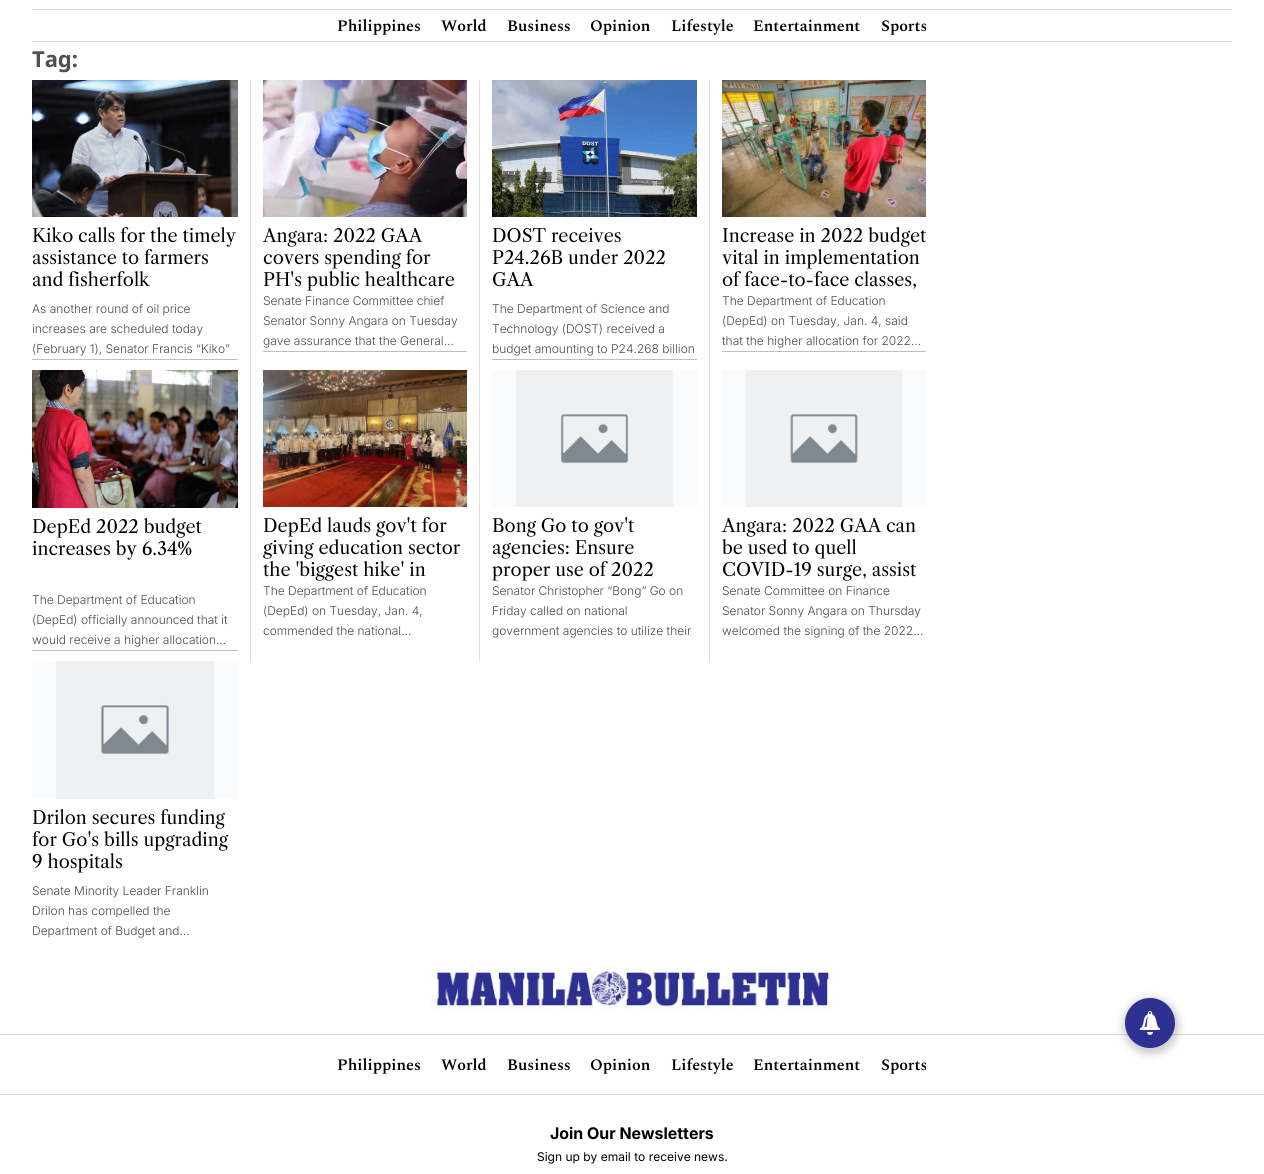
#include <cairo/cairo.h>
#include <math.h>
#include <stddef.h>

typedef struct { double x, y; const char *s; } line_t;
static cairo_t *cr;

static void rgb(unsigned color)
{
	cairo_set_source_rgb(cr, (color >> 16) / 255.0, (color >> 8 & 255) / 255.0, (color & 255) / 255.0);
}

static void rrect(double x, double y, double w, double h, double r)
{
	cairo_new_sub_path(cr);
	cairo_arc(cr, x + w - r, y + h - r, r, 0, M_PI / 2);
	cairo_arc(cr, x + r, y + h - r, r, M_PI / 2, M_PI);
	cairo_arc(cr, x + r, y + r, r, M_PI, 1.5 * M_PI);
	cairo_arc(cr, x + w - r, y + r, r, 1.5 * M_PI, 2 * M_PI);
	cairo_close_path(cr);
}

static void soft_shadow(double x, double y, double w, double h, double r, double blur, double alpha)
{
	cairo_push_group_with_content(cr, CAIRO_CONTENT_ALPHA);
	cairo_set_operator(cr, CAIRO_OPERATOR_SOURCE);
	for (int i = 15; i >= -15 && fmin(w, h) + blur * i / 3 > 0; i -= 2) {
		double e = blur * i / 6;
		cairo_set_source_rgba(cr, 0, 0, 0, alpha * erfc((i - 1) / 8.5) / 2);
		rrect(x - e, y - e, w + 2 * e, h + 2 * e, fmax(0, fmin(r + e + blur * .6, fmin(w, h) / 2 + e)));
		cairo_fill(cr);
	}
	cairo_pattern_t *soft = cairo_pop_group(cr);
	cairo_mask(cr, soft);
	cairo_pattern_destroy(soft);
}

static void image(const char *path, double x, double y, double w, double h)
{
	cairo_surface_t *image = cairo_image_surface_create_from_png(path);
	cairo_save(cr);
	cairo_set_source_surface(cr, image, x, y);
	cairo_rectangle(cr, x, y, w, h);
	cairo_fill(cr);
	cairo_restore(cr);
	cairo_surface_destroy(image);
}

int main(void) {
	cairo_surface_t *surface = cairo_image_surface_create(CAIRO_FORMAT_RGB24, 1264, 1174);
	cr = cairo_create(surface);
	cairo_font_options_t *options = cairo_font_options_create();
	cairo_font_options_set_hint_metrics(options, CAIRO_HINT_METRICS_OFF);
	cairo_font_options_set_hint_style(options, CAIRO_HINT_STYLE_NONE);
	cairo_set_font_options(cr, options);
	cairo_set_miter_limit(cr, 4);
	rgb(0xffffff);
	cairo_paint(cr);
	rgb(0xd8d8d8);
	cairo_rectangle(cr, 32, 9, 1200, 1);
	cairo_fill(cr);
	cairo_rectangle(cr, 32, 41, 1200, 1);
	cairo_fill(cr);
	image("img/1.png", 32, 80, 206, 137);
	rgb(0xc3c1ae);
	cairo_rectangle(cr, 32, 359, 206, 1);
	cairo_fill(cr);
	rgb(0xe0e0e0);
	cairo_rectangle(cr, 250, 80, 1, 581);
	cairo_fill(cr);
	image("img/2.png", 263, 80, 204, 137);
	rgb(0xc3c1ae);
	cairo_rectangle(cr, 263, 351, 204, 1);
	cairo_fill(cr);
	rgb(0xe0e0e0);
	cairo_rectangle(cr, 479, 80, 1, 581);
	cairo_fill(cr);
	image("img/3.png", 492, 80, 205, 137);
	rgb(0xc3c1ae);
	cairo_rectangle(cr, 492, 359, 205, 1);
	cairo_fill(cr);
	rgb(0xe0e0e0);
	cairo_rectangle(cr, 709, 80, 1, 581);
	cairo_fill(cr);
	image("img/4.png", 722, 80, 204, 137);
	rgb(0xc3c1ae);
	cairo_rectangle(cr, 722, 351, 204, 1);
	cairo_fill(cr);
	image("img/5.png", 32, 370, 206, 138);
	cairo_rectangle(cr, 32, 650, 206, 1);
	cairo_fill(cr);
	image("img/6.png", 263, 370, 204, 137);
	image("img/7.png", 492, 370, 205, 137);
	image("img/8.png", 722, 370, 204, 137);
	image("img/9.png", 32, 661, 206, 138);
	image("img/10.png", 431, 965, 402, 45);
	rgb(0xd8d8d8);
	cairo_rectangle(cr, 0, 1034, 1264, 1);
	cairo_fill(cr);
	rgb(0x000000);
	soft_shadow(1123, 998, 56, 56, 28, 4, 0.2);
	rgb(0x2e3192);
	cairo_arc(cr, 1150, 1023, 25, 0, 2 * M_PI);
	cairo_fill(cr);
	image("img/11.png", 1140, 1011, 20, 24);
	rgb(0xd8d8d8);
	cairo_rectangle(cr, 0, 1094, 1264, 1);
	cairo_fill(cr);
	cairo_select_font_face(cr, "Spectral SemiBold", CAIRO_FONT_SLANT_NORMAL, CAIRO_FONT_WEIGHT_NORMAL);
	cairo_set_font_size(cr, 16);
	rgb(0x000000);
	{
		static const line_t items[] = {
			{337, 31, "Philippines"},
			{441, 31, "World"},
			{507, 31, "Business"},
			{590, 31, "Opinion"},
			{671, 31, "Lifestyle"},
			{753, 31, "Entertainment"},
			{881, 31, "Sports"},
		};
		for (size_t i = 0; i < sizeof items / sizeof *items; i++) {
			cairo_move_to(cr, items[i].x, items[i].y);
			cairo_show_text(cr, items[i].s);
		}
	}
	cairo_select_font_face(cr, "Noto Sans", CAIRO_FONT_SLANT_NORMAL, CAIRO_FONT_WEIGHT_BOLD);
	cairo_set_font_size(cr, 22);
	rgb(0x4d5154);
	cairo_move_to(cr, 32, 67);
	cairo_show_text(cr, "Tag:");
	cairo_select_font_face(cr, "Libre Caslon Text", CAIRO_FONT_SLANT_NORMAL, CAIRO_FONT_WEIGHT_NORMAL);
	cairo_set_font_size(cr, 18);
	rgb(0x000000);
	{
		static const line_t items[] = {
			{32, 242, "Kiko calls for the timely"},
			{32, 264, "assistance to farmers"},
			{32, 286, "and fisherfolk"},
		};
		for (size_t i = 0; i < sizeof items / sizeof *items; i++) {
			cairo_move_to(cr, items[i].x, items[i].y);
			cairo_show_text(cr, items[i].s);
		}
	}
	cairo_select_font_face(cr, "Inter Light", CAIRO_FONT_SLANT_NORMAL, CAIRO_FONT_WEIGHT_NORMAL);
	cairo_set_font_size(cr, 12);
	rgb(0x4b4a47);
	{
		static const line_t items[] = {
			{32, 313, "As another round of oil price"},
			{32, 333, "increases are scheduled today"},
			{32, 353, "(February 1), Senator Francis “Kiko”"},
		};
		for (size_t i = 0; i < sizeof items / sizeof *items; i++) {
			cairo_move_to(cr, items[i].x, items[i].y);
			cairo_show_text(cr, items[i].s);
		}
	}
	cairo_select_font_face(cr, "Libre Caslon Text", CAIRO_FONT_SLANT_NORMAL, CAIRO_FONT_WEIGHT_NORMAL);
	cairo_set_font_size(cr, 18);
	rgb(0x000000);
	{
		static const line_t items[] = {
			{263, 242, "Angara: 2022 GAA"},
			{263, 264, "covers spending for"},
			{263, 286, "PH's public healthcare"},
		};
		for (size_t i = 0; i < sizeof items / sizeof *items; i++) {
			cairo_move_to(cr, items[i].x, items[i].y);
			cairo_show_text(cr, items[i].s);
		}
	}
	cairo_select_font_face(cr, "Inter Light", CAIRO_FONT_SLANT_NORMAL, CAIRO_FONT_WEIGHT_NORMAL);
	cairo_set_font_size(cr, 12);
	rgb(0x4b4a47);
	{
		static const line_t items[] = {
			{263, 305, "Senate Finance Committee chief"},
			{263, 325, "Senator Sonny Angara on Tuesday"},
			{263, 345, "gave assurance that the General…"},
		};
		for (size_t i = 0; i < sizeof items / sizeof *items; i++) {
			cairo_move_to(cr, items[i].x, items[i].y);
			cairo_show_text(cr, items[i].s);
		}
	}
	cairo_select_font_face(cr, "Libre Caslon Text", CAIRO_FONT_SLANT_NORMAL, CAIRO_FONT_WEIGHT_NORMAL);
	cairo_set_font_size(cr, 18);
	rgb(0x000000);
	{
		static const line_t items[] = {
			{492, 242, "DOST receives"},
			{492, 264, "P24.26B under 2022"},
			{492, 286, "GAA"},
		};
		for (size_t i = 0; i < sizeof items / sizeof *items; i++) {
			cairo_move_to(cr, items[i].x, items[i].y);
			cairo_show_text(cr, items[i].s);
		}
	}
	cairo_select_font_face(cr, "Inter Light", CAIRO_FONT_SLANT_NORMAL, CAIRO_FONT_WEIGHT_NORMAL);
	cairo_set_font_size(cr, 12);
	rgb(0x4b4a47);
	{
		static const line_t items[] = {
			{492, 313, "The Department of Science and"},
			{492, 333, "Technology (DOST) received a"},
			{492, 353, "budget amounting to P24.268 billion"},
		};
		for (size_t i = 0; i < sizeof items / sizeof *items; i++) {
			cairo_move_to(cr, items[i].x, items[i].y);
			cairo_show_text(cr, items[i].s);
		}
	}
	cairo_select_font_face(cr, "Libre Caslon Text", CAIRO_FONT_SLANT_NORMAL, CAIRO_FONT_WEIGHT_NORMAL);
	cairo_set_font_size(cr, 18);
	rgb(0x000000);
	{
		static const line_t items[] = {
			{722, 242, "Increase in 2022 budget"},
			{722, 264, "vital in implementation"},
			{722, 286, "of face-to-face classes,"},
		};
		for (size_t i = 0; i < sizeof items / sizeof *items; i++) {
			cairo_move_to(cr, items[i].x, items[i].y);
			cairo_show_text(cr, items[i].s);
		}
	}
	cairo_select_font_face(cr, "Inter Light", CAIRO_FONT_SLANT_NORMAL, CAIRO_FONT_WEIGHT_NORMAL);
	cairo_set_font_size(cr, 12);
	rgb(0x4b4a47);
	{
		static const line_t items[] = {
			{722, 305, "The Department of Education"},
			{722, 325, "(DepEd) on Tuesday, Jan. 4, said"},
			{722, 345, "that the higher allocation for 2022…"},
		};
		for (size_t i = 0; i < sizeof items / sizeof *items; i++) {
			cairo_move_to(cr, items[i].x, items[i].y);
			cairo_show_text(cr, items[i].s);
		}
	}
	cairo_select_font_face(cr, "Libre Caslon Text", CAIRO_FONT_SLANT_NORMAL, CAIRO_FONT_WEIGHT_NORMAL);
	cairo_set_font_size(cr, 18);
	rgb(0x000000);
	cairo_move_to(cr, 32, 533);
	cairo_show_text(cr, "DepEd 2022 budget");
	cairo_move_to(cr, 32, 555);
	cairo_show_text(cr, "increases by 6.34%");
	cairo_select_font_face(cr, "Inter Light", CAIRO_FONT_SLANT_NORMAL, CAIRO_FONT_WEIGHT_NORMAL);
	cairo_set_font_size(cr, 12);
	rgb(0x4b4a47);
	{
		static const line_t items[] = {
			{32, 604, "The Department of Education"},
			{32, 624, "(DepEd) officially announced that it"},
			{32, 644, "would receive a higher allocation…"},
		};
		for (size_t i = 0; i < sizeof items / sizeof *items; i++) {
			cairo_move_to(cr, items[i].x, items[i].y);
			cairo_show_text(cr, items[i].s);
		}
	}
	cairo_select_font_face(cr, "Libre Caslon Text", CAIRO_FONT_SLANT_NORMAL, CAIRO_FONT_WEIGHT_NORMAL);
	cairo_set_font_size(cr, 18);
	rgb(0x000000);
	{
		static const line_t items[] = {
			{263, 532, "DepEd lauds gov't for"},
			{263, 554, "giving education sector"},
			{263, 576, "the 'biggest hike' in"},
		};
		for (size_t i = 0; i < sizeof items / sizeof *items; i++) {
			cairo_move_to(cr, items[i].x, items[i].y);
			cairo_show_text(cr, items[i].s);
		}
	}
	cairo_select_font_face(cr, "Inter Light", CAIRO_FONT_SLANT_NORMAL, CAIRO_FONT_WEIGHT_NORMAL);
	cairo_set_font_size(cr, 12);
	rgb(0x4b4a47);
	{
		static const line_t items[] = {
			{263, 595, "The Department of Education"},
			{263, 615, "(DepEd) on Tuesday, Jan. 4,"},
			{263, 635, "commended the national…"},
		};
		for (size_t i = 0; i < sizeof items / sizeof *items; i++) {
			cairo_move_to(cr, items[i].x, items[i].y);
			cairo_show_text(cr, items[i].s);
		}
	}
	cairo_select_font_face(cr, "Libre Caslon Text", CAIRO_FONT_SLANT_NORMAL, CAIRO_FONT_WEIGHT_NORMAL);
	cairo_set_font_size(cr, 18);
	rgb(0x000000);
	{
		static const line_t items[] = {
			{492, 532, "Bong Go to gov't"},
			{492, 554, "agencies: Ensure"},
			{492, 576, "proper use of 2022"},
		};
		for (size_t i = 0; i < sizeof items / sizeof *items; i++) {
			cairo_move_to(cr, items[i].x, items[i].y);
			cairo_show_text(cr, items[i].s);
		}
	}
	cairo_select_font_face(cr, "Inter Light", CAIRO_FONT_SLANT_NORMAL, CAIRO_FONT_WEIGHT_NORMAL);
	cairo_set_font_size(cr, 12);
	rgb(0x4b4a47);
	{
		static const line_t items[] = {
			{492, 595, "Senator Christopher “Bong” Go on"},
			{492, 615, "Friday called on national"},
			{492, 635, "government agencies to utilize their"},
		};
		for (size_t i = 0; i < sizeof items / sizeof *items; i++) {
			cairo_move_to(cr, items[i].x, items[i].y);
			cairo_show_text(cr, items[i].s);
		}
	}
	cairo_select_font_face(cr, "Libre Caslon Text", CAIRO_FONT_SLANT_NORMAL, CAIRO_FONT_WEIGHT_NORMAL);
	cairo_set_font_size(cr, 18);
	rgb(0x000000);
	{
		static const line_t items[] = {
			{722, 532, "Angara: 2022 GAA can"},
			{722, 554, "be used to quell"},
			{722, 576, "COVID-19 surge, assist"},
		};
		for (size_t i = 0; i < sizeof items / sizeof *items; i++) {
			cairo_move_to(cr, items[i].x, items[i].y);
			cairo_show_text(cr, items[i].s);
		}
	}
	cairo_select_font_face(cr, "Inter Light", CAIRO_FONT_SLANT_NORMAL, CAIRO_FONT_WEIGHT_NORMAL);
	cairo_set_font_size(cr, 12);
	rgb(0x4b4a47);
	{
		static const line_t items[] = {
			{722, 595, "Senate Committee on Finance"},
			{722, 615, "Senator Sonny Angara on Thursday"},
			{722, 635, "welcomed the signing of the 2022…"},
		};
		for (size_t i = 0; i < sizeof items / sizeof *items; i++) {
			cairo_move_to(cr, items[i].x, items[i].y);
			cairo_show_text(cr, items[i].s);
		}
	}
	cairo_select_font_face(cr, "Libre Caslon Text", CAIRO_FONT_SLANT_NORMAL, CAIRO_FONT_WEIGHT_NORMAL);
	cairo_set_font_size(cr, 18);
	rgb(0x000000);
	{
		static const line_t items[] = {
			{32, 824, "Drilon secures funding"},
			{32, 846, "for Go's bills upgrading"},
			{32, 868, "9 hospitals"},
		};
		for (size_t i = 0; i < sizeof items / sizeof *items; i++) {
			cairo_move_to(cr, items[i].x, items[i].y);
			cairo_show_text(cr, items[i].s);
		}
	}
	cairo_select_font_face(cr, "Inter Light", CAIRO_FONT_SLANT_NORMAL, CAIRO_FONT_WEIGHT_NORMAL);
	cairo_set_font_size(cr, 12);
	rgb(0x4b4a47);
	{
		static const line_t items[] = {
			{32, 895, "Senate Minority Leader Franklin"},
			{32, 915, "Drilon has compelled the"},
			{32, 935, "Department of Budget and…"},
		};
		for (size_t i = 0; i < sizeof items / sizeof *items; i++) {
			cairo_move_to(cr, items[i].x, items[i].y);
			cairo_show_text(cr, items[i].s);
		}
	}
	cairo_select_font_face(cr, "Spectral SemiBold", CAIRO_FONT_SLANT_NORMAL, CAIRO_FONT_WEIGHT_NORMAL);
	cairo_set_font_size(cr, 16);
	rgb(0x000000);
	{
		static const line_t items[] = {
			{337, 1070, "Philippines"},
			{441, 1070, "World"},
			{507, 1070, "Business"},
			{590, 1070, "Opinion"},
			{671, 1070, "Lifestyle"},
			{753, 1070, "Entertainment"},
			{881, 1070, "Sports"},
		};
		for (size_t i = 0; i < sizeof items / sizeof *items; i++) {
			cairo_move_to(cr, items[i].x, items[i].y);
			cairo_show_text(cr, items[i].s);
		}
	}
	cairo_select_font_face(cr, "Inter", CAIRO_FONT_SLANT_NORMAL, CAIRO_FONT_WEIGHT_BOLD);
	cairo_move_to(cr, 550, 1139);
	cairo_show_text(cr, "Join Our Newsletters");
	cairo_select_font_face(cr, "Inter", CAIRO_FONT_SLANT_NORMAL, CAIRO_FONT_WEIGHT_NORMAL);
	cairo_set_font_size(cr, 12);
	cairo_move_to(cr, 537, 1161);
	cairo_show_text(cr, "Sign up by email to receive news.");
	cairo_surface_write_to_png(surface, "page.png");
	cairo_font_options_destroy(options);
	cairo_destroy(cr);
	cairo_surface_destroy(surface);
	return 0;
}
